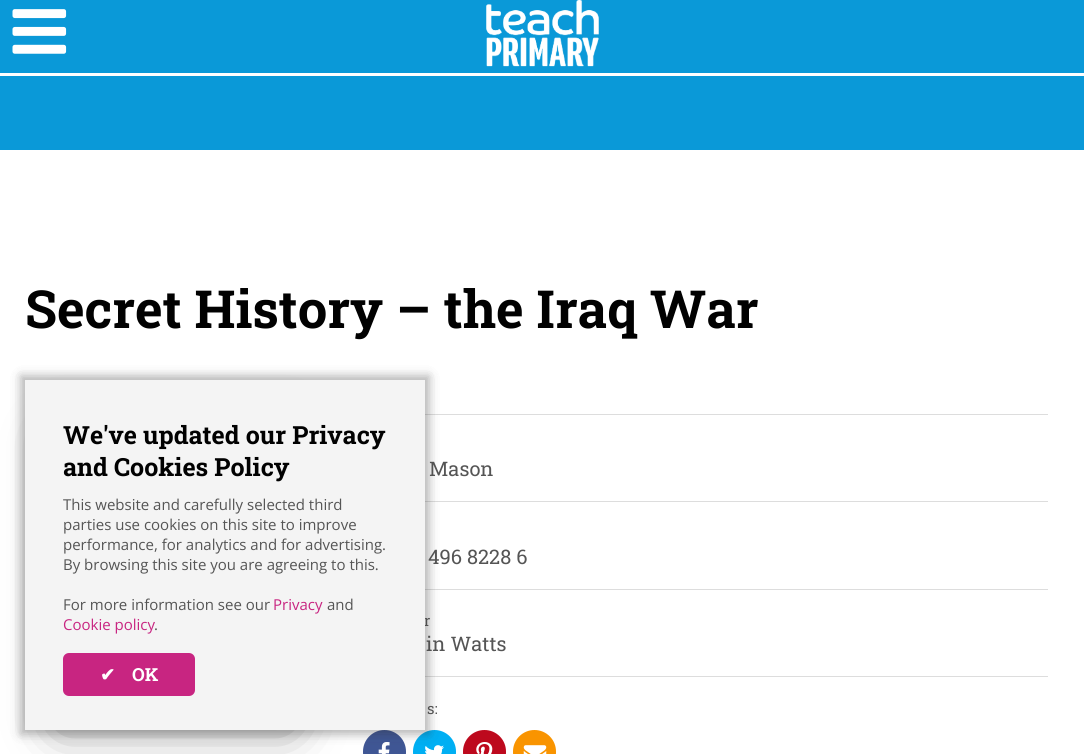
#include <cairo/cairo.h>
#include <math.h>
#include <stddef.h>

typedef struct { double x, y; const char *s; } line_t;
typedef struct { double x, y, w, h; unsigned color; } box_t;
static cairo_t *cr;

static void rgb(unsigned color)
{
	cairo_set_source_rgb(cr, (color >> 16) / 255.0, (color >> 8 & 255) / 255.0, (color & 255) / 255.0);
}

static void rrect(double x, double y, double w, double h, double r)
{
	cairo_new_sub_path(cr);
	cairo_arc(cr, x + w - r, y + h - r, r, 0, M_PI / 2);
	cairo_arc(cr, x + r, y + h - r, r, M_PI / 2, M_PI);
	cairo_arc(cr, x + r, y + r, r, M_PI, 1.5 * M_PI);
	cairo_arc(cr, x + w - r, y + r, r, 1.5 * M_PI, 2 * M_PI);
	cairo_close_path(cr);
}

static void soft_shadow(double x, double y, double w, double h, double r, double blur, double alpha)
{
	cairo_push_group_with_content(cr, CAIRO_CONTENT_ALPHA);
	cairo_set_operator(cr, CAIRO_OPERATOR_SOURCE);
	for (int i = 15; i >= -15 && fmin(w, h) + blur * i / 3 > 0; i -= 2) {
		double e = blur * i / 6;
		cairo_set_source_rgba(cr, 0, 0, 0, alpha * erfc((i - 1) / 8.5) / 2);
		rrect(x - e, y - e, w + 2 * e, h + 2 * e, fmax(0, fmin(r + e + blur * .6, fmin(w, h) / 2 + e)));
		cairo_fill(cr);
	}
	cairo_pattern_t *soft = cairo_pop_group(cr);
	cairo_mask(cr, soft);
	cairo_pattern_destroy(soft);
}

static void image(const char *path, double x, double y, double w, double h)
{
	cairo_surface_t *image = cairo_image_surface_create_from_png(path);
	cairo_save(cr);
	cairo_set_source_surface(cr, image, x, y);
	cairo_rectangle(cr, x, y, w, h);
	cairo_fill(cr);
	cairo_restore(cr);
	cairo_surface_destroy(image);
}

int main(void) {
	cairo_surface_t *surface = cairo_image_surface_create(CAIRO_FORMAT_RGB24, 1084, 754);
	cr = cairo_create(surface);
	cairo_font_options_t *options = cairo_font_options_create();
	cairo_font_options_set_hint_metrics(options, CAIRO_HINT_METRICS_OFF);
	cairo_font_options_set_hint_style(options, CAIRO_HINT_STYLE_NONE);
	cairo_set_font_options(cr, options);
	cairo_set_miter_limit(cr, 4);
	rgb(0xffffff);
	cairo_paint(cr);
	rgb(0x0a99d8);
	cairo_rectangle(cr, 0, 0, 1084, 150);
	cairo_fill(cr);
	rgb(0xffffff);
	cairo_rectangle(cr, 0, 73, 1084, 3);
	cairo_fill(cr);
	image("img/1.png", 12, 9, 55, 45);
	image("img/2.png", 486, 0, 113, 67);
	rgb(0x888888);
	soft_shadow(60, 436, 230, 290, 0, 25, 1);
	{
		static const box_t items[] = {
			{425, 414, 623, 1, 0xdddddd},
			{425, 501, 623, 1, 0xdddddd},
			{425, 589, 623, 1, 0xdddddd},
			{425, 676, 623, 1, 0xdddddd},
		};
		for (size_t i = 0; i < sizeof items / sizeof *items; i++) {
			rgb(items[i].color);
			cairo_rectangle(cr, items[i].x, items[i].y, items[i].w, items[i].h);
			cairo_fill(cr);
		}
	}
	rgb(0x3f5694);
	rrect(363, 730, 43, 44, 21.5);
	cairo_fill(cr);
	image("img/3.png", 378, 742, 12, 12);
	rgb(0x00aff3);
	rrect(413, 730, 43, 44, 21.5);
	cairo_fill(cr);
	image("img/4.png", 425, 745, 19, 9);
	rgb(0xbd091d);
	rrect(463, 730, 43, 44, 21.5);
	cairo_fill(cr);
	image("img/5.png", 476, 742, 17, 12);
	rgb(0xf99400);
	rrect(513, 730, 43, 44, 21.5);
	cairo_fill(cr);
	image("img/6.png", 523, 745, 24, 9);
	rgb(0x2d2d2d);
	soft_shadow(21, 376, 408, 358, 0, 5, 0.2);
	cairo_select_font_face(cr, "Roboto Slab", CAIRO_FONT_SLANT_NORMAL, CAIRO_FONT_WEIGHT_BOLD);
	cairo_set_font_size(cr, 52.5);
	rgb(0x010101);
	cairo_move_to(cr, 25, 328);
	cairo_show_text(cr, "Secret History – the Iraq War");
	cairo_select_font_face(cr, "Roboto Slab", CAIRO_FONT_SLANT_NORMAL, CAIRO_FONT_WEIGHT_NORMAL);
	cairo_set_font_size(cr, 20);
	rgb(0x555555);
	cairo_move_to(cr, 429, 476);
	cairo_show_text(cr, "Mason");
	cairo_move_to(cr, 428, 564);
	cairo_show_text(cr, "496 8228 6");
	cairo_set_font_size(cr, 15);
	cairo_move_to(cr, 424, 626);
	cairo_show_text(cr, "r");
	cairo_set_font_size(cr, 20);
	cairo_move_to(cr, 426, 651);
	cairo_show_text(cr, "in Watts");
	cairo_set_font_size(cr, 15);
	cairo_move_to(cr, 427, 714);
	cairo_show_text(cr, "s:");
	rgb(0xf4f4f4);
	cairo_rectangle(cr, 25, 380, 400, 350);
	cairo_fill(cr);
	cairo_save(cr);
	cairo_set_fill_rule(cr, CAIRO_FILL_RULE_EVEN_ODD);
	cairo_new_path(cr);
	cairo_move_to(cr, 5, 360);
	cairo_line_to(cr, 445, 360);
	cairo_line_to(cr, 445, 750);
	cairo_line_to(cr, 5, 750);
	cairo_close_path(cr);
	cairo_move_to(cr, 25, 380);
	cairo_line_to(cr, 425, 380);
	cairo_line_to(cr, 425, 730);
	cairo_line_to(cr, 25, 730);
	cairo_close_path(cr);
	cairo_clip(cr);
	rgb(0x2d2d2d);
	soft_shadow(21, 376, 408, 358, 0, 5, 0.2);
	cairo_restore(cr);
	cairo_select_font_face(cr, "Roboto Slab", CAIRO_FONT_SLANT_NORMAL, CAIRO_FONT_WEIGHT_BOLD);
	cairo_set_font_size(cr, 25);
	rgb(0x010101);
	cairo_move_to(cr, 63, 444);
	cairo_show_text(cr, "We've updated our Privacy");
	cairo_move_to(cr, 63, 476);
	cairo_show_text(cr, "and Cookies Policy");
	cairo_select_font_face(cr, "Open Sans", CAIRO_FONT_SLANT_NORMAL, CAIRO_FONT_WEIGHT_NORMAL);
	cairo_set_font_size(cr, 15);
	rgb(0x555555);
	{
		static const line_t items[] = {
			{63, 510, "This website and carefully selected third"},
			{63, 530, "parties use cookies on this site to improve"},
			{63, 550, "performance, for analytics and for advertising."},
			{63, 570, "By browsing this site you are agreeing to this."},
			{63, 610, "For more information see our"},
		};
		for (size_t i = 0; i < sizeof items / sizeof *items; i++) {
			cairo_move_to(cr, items[i].x, items[i].y);
			cairo_show_text(cr, items[i].s);
		}
	}
	rgb(0xc82581);
	cairo_move_to(cr, 273, 610);
	cairo_show_text(cr, "Privacy");
	rgb(0x555555);
	cairo_move_to(cr, 327, 610);
	cairo_show_text(cr, "and");
	rgb(0xc82581);
	cairo_move_to(cr, 63, 630);
	cairo_show_text(cr, "Cookie policy");
	rgb(0x555555);
	cairo_move_to(cr, 154, 630);
	cairo_show_text(cr, ".");
	rgb(0xc82581);
	rrect(63, 653, 132, 43, 6);
	cairo_fill(cr);
	cairo_select_font_face(cr, "DejaVu Sans", CAIRO_FONT_SLANT_NORMAL, CAIRO_FONT_WEIGHT_BOLD);
	cairo_set_font_size(cr, 18);
	rgb(0xffffff);
	cairo_move_to(cr, 100, 681);
	cairo_show_text(cr, "✔");
	cairo_select_font_face(cr, "Roboto Slab", CAIRO_FONT_SLANT_NORMAL, CAIRO_FONT_WEIGHT_BOLD);
	cairo_move_to(cr, 132, 681);
	cairo_show_text(cr, "OK");
	cairo_surface_write_to_png(surface, "page.png");
	cairo_font_options_destroy(options);
	cairo_destroy(cr);
	cairo_surface_destroy(surface);
	return 0;
}
